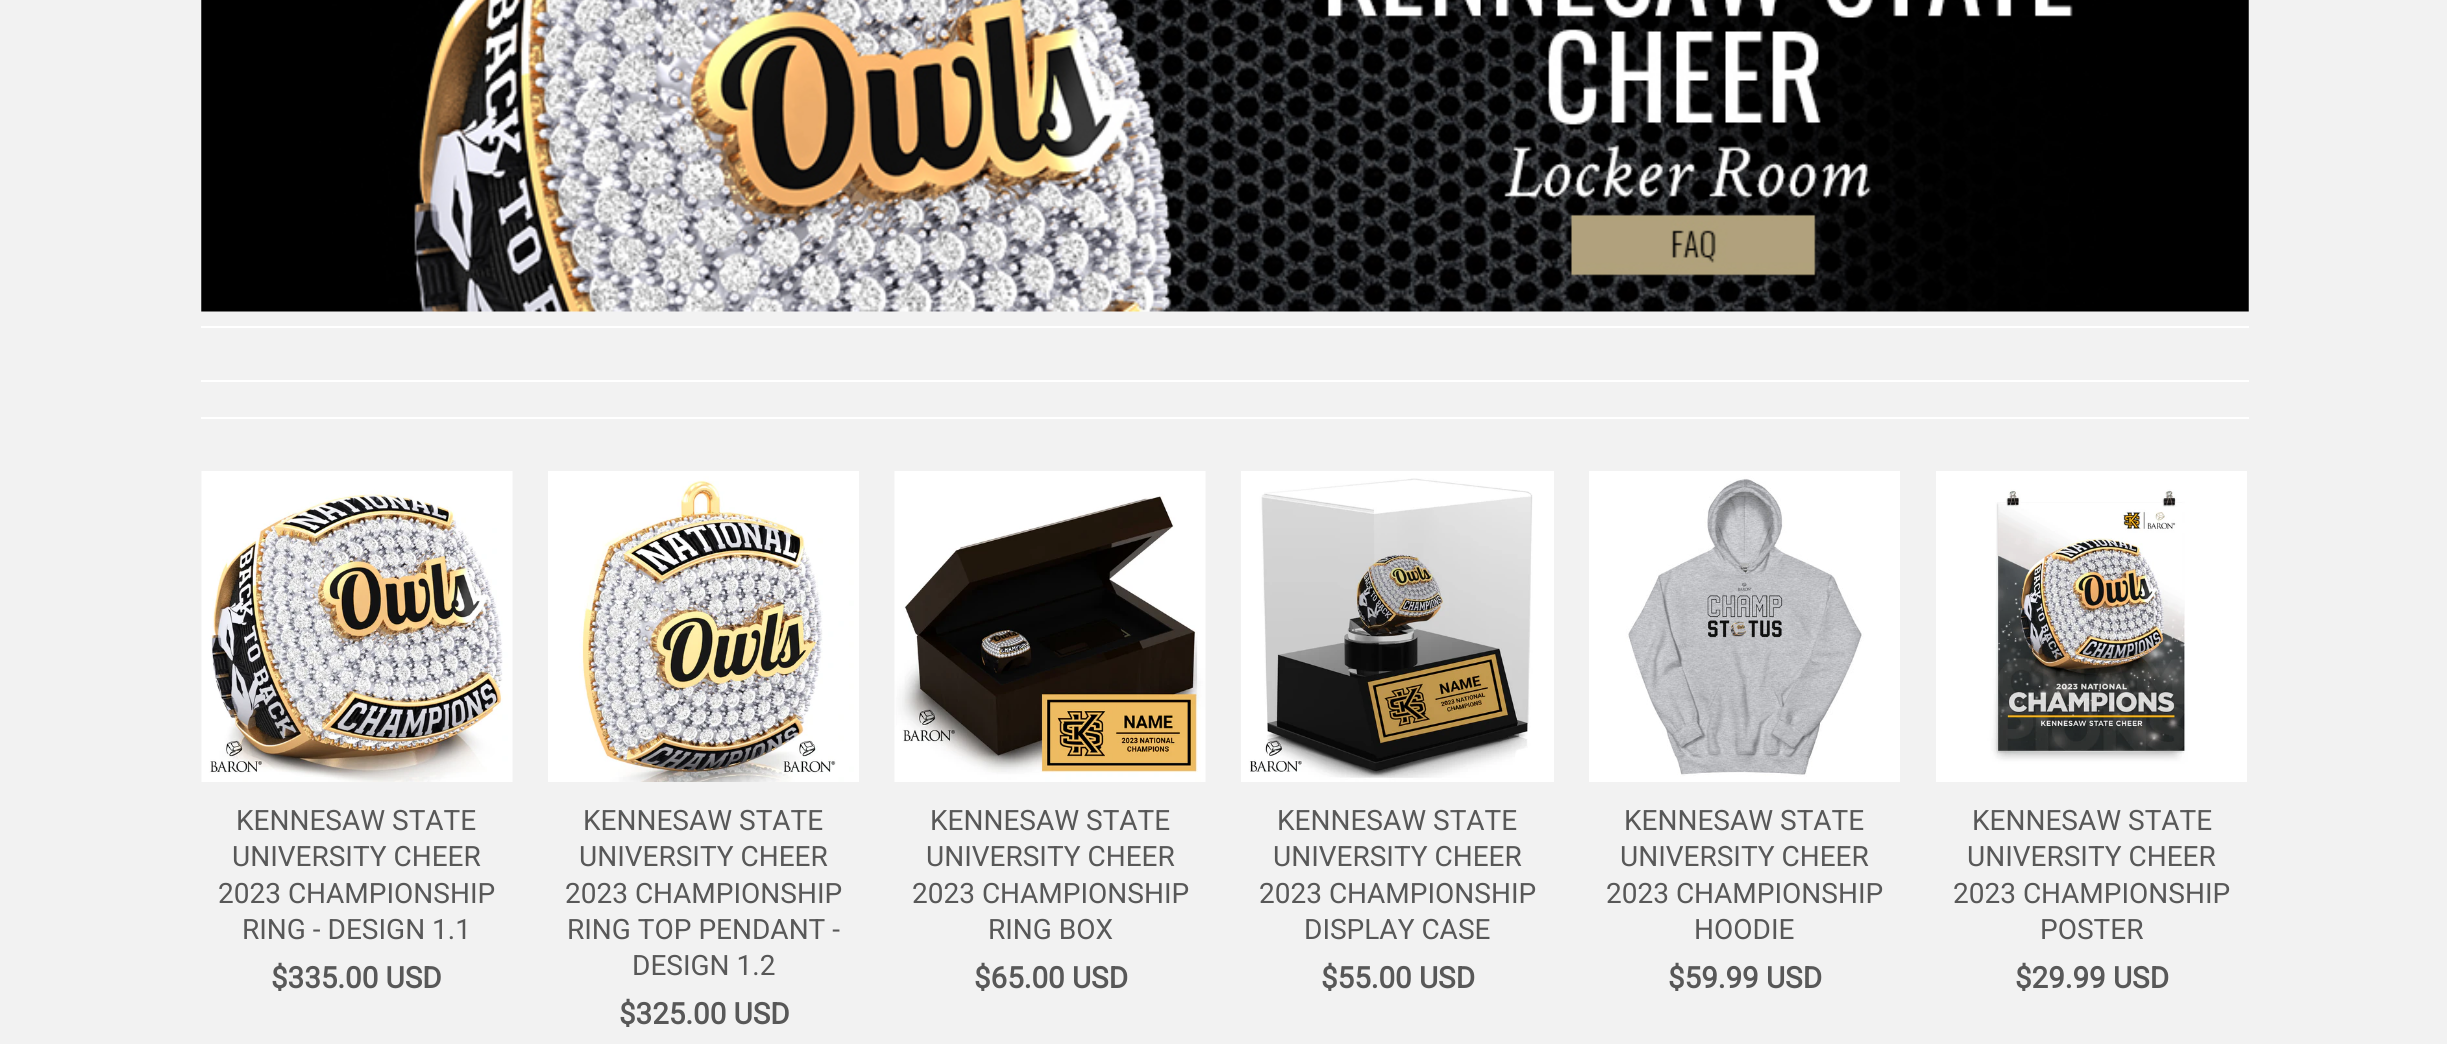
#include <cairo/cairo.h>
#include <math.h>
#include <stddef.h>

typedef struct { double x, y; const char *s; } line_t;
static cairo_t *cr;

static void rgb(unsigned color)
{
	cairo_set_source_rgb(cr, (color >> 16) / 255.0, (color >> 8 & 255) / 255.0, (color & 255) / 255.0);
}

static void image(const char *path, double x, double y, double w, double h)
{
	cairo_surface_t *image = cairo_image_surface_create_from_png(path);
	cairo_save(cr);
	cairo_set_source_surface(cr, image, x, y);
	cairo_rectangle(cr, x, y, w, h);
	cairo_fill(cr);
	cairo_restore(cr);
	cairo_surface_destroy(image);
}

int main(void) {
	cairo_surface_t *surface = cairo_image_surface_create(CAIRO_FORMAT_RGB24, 2447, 1044);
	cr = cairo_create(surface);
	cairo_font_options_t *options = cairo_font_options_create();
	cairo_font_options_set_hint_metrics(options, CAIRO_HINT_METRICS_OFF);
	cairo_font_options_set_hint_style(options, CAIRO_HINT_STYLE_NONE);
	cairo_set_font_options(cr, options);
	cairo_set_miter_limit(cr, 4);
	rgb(0xf2f2f2);
	cairo_paint(cr);
	rgb(0xffffff);
	cairo_rectangle(cr, 201, 326, 2048, 2);
	cairo_fill(cr);
	image("img/1.png", 201, 0, 2048, 312);
	cairo_rectangle(cr, 201, 380, 2048, 2);
	cairo_fill(cr);
	cairo_rectangle(cr, 201, 417, 2048, 2);
	cairo_fill(cr);
	image("img/2.png", 201, 471, 312, 311);
	image("img/3.png", 548, 471, 311, 311);
	image("img/4.png", 894, 471, 312, 311);
	image("img/5.png", 1241, 471, 313, 311);
	image("img/6.png", 1589, 471, 311, 311);
	image("img/7.png", 1936, 471, 311, 311);
	cairo_select_font_face(cr, "Roboto", CAIRO_FONT_SLANT_NORMAL, CAIRO_FONT_WEIGHT_NORMAL);
	cairo_set_font_size(cr, 28);
	rgb(0x585858);
	{
		static const line_t items[] = {
			{236, 830, "KENNESAW STATE"},
			{232, 866, "UNIVERSITY CHEER"},
			{218, 903, "2023 CHAMPIONSHIP"},
			{242, 939, "RING - DESIGN 1.1"},
		};
		for (size_t i = 0; i < sizeof items / sizeof *items; i++) {
			cairo_move_to(cr, items[i].x, items[i].y);
			cairo_show_text(cr, items[i].s);
		}
	}
	cairo_select_font_face(cr, "Roboto", CAIRO_FONT_SLANT_NORMAL, CAIRO_FONT_WEIGHT_BOLD);
	cairo_set_font_size(cr, 29.5);
	cairo_move_to(cr, 271, 988);
	cairo_show_text(cr, "$335.00 USD");
	cairo_select_font_face(cr, "Roboto", CAIRO_FONT_SLANT_NORMAL, CAIRO_FONT_WEIGHT_NORMAL);
	cairo_set_font_size(cr, 28);
	{
		static const line_t items[] = {
			{583, 830, "KENNESAW STATE"},
			{579, 866, "UNIVERSITY CHEER"},
			{565, 903, "2023 CHAMPIONSHIP"},
			{567, 939, "RING TOP PENDANT -"},
			{632, 975, "DESIGN 1.2"},
		};
		for (size_t i = 0; i < sizeof items / sizeof *items; i++) {
			cairo_move_to(cr, items[i].x, items[i].y);
			cairo_show_text(cr, items[i].s);
		}
	}
	cairo_select_font_face(cr, "Roboto", CAIRO_FONT_SLANT_NORMAL, CAIRO_FONT_WEIGHT_BOLD);
	cairo_set_font_size(cr, 29.5);
	cairo_move_to(cr, 619, 1024);
	cairo_show_text(cr, "$325.00 USD");
	cairo_select_font_face(cr, "Roboto", CAIRO_FONT_SLANT_NORMAL, CAIRO_FONT_WEIGHT_NORMAL);
	cairo_set_font_size(cr, 28);
	{
		static const line_t items[] = {
			{930, 830, "KENNESAW STATE"},
			{926, 866, "UNIVERSITY CHEER"},
			{912, 903, "2023 CHAMPIONSHIP"},
			{988, 939, "RING BOX"},
		};
		for (size_t i = 0; i < sizeof items / sizeof *items; i++) {
			cairo_move_to(cr, items[i].x, items[i].y);
			cairo_show_text(cr, items[i].s);
		}
	}
	cairo_select_font_face(cr, "Roboto", CAIRO_FONT_SLANT_NORMAL, CAIRO_FONT_WEIGHT_BOLD);
	cairo_set_font_size(cr, 29.5);
	cairo_move_to(cr, 974, 988);
	cairo_show_text(cr, "$65.00 USD");
	cairo_select_font_face(cr, "Roboto", CAIRO_FONT_SLANT_NORMAL, CAIRO_FONT_WEIGHT_NORMAL);
	cairo_set_font_size(cr, 28);
	{
		static const line_t items[] = {
			{1277, 830, "KENNESAW STATE"},
			{1273, 866, "UNIVERSITY CHEER"},
			{1259, 903, "2023 CHAMPIONSHIP"},
			{1304, 939, "DISPLAY CASE"},
		};
		for (size_t i = 0; i < sizeof items / sizeof *items; i++) {
			cairo_move_to(cr, items[i].x, items[i].y);
			cairo_show_text(cr, items[i].s);
		}
	}
	cairo_select_font_face(cr, "Roboto", CAIRO_FONT_SLANT_NORMAL, CAIRO_FONT_WEIGHT_BOLD);
	cairo_set_font_size(cr, 29.5);
	cairo_move_to(cr, 1321, 988);
	cairo_show_text(cr, "$55.00 USD");
	cairo_select_font_face(cr, "Roboto", CAIRO_FONT_SLANT_NORMAL, CAIRO_FONT_WEIGHT_NORMAL);
	cairo_set_font_size(cr, 28);
	{
		static const line_t items[] = {
			{1624, 830, "KENNESAW STATE"},
			{1620, 866, "UNIVERSITY CHEER"},
			{1606, 903, "2023 CHAMPIONSHIP"},
			{1694, 939, "HOODIE"},
		};
		for (size_t i = 0; i < sizeof items / sizeof *items; i++) {
			cairo_move_to(cr, items[i].x, items[i].y);
			cairo_show_text(cr, items[i].s);
		}
	}
	cairo_select_font_face(cr, "Roboto", CAIRO_FONT_SLANT_NORMAL, CAIRO_FONT_WEIGHT_BOLD);
	cairo_set_font_size(cr, 29.5);
	cairo_move_to(cr, 1668, 988);
	cairo_show_text(cr, "$59.99 USD");
	cairo_select_font_face(cr, "Roboto", CAIRO_FONT_SLANT_NORMAL, CAIRO_FONT_WEIGHT_NORMAL);
	cairo_set_font_size(cr, 28);
	{
		static const line_t items[] = {
			{1972, 830, "KENNESAW STATE"},
			{1967, 866, "UNIVERSITY CHEER"},
			{1953, 903, "2023 CHAMPIONSHIP"},
			{2040, 939, "POSTER"},
		};
		for (size_t i = 0; i < sizeof items / sizeof *items; i++) {
			cairo_move_to(cr, items[i].x, items[i].y);
			cairo_show_text(cr, items[i].s);
		}
	}
	cairo_select_font_face(cr, "Roboto", CAIRO_FONT_SLANT_NORMAL, CAIRO_FONT_WEIGHT_BOLD);
	cairo_set_font_size(cr, 29.5);
	cairo_move_to(cr, 2015, 988);
	cairo_show_text(cr, "$29.99 USD");
	cairo_surface_write_to_png(surface, "page.png");
	cairo_font_options_destroy(options);
	cairo_destroy(cr);
	cairo_surface_destroy(surface);
	return 0;
}
